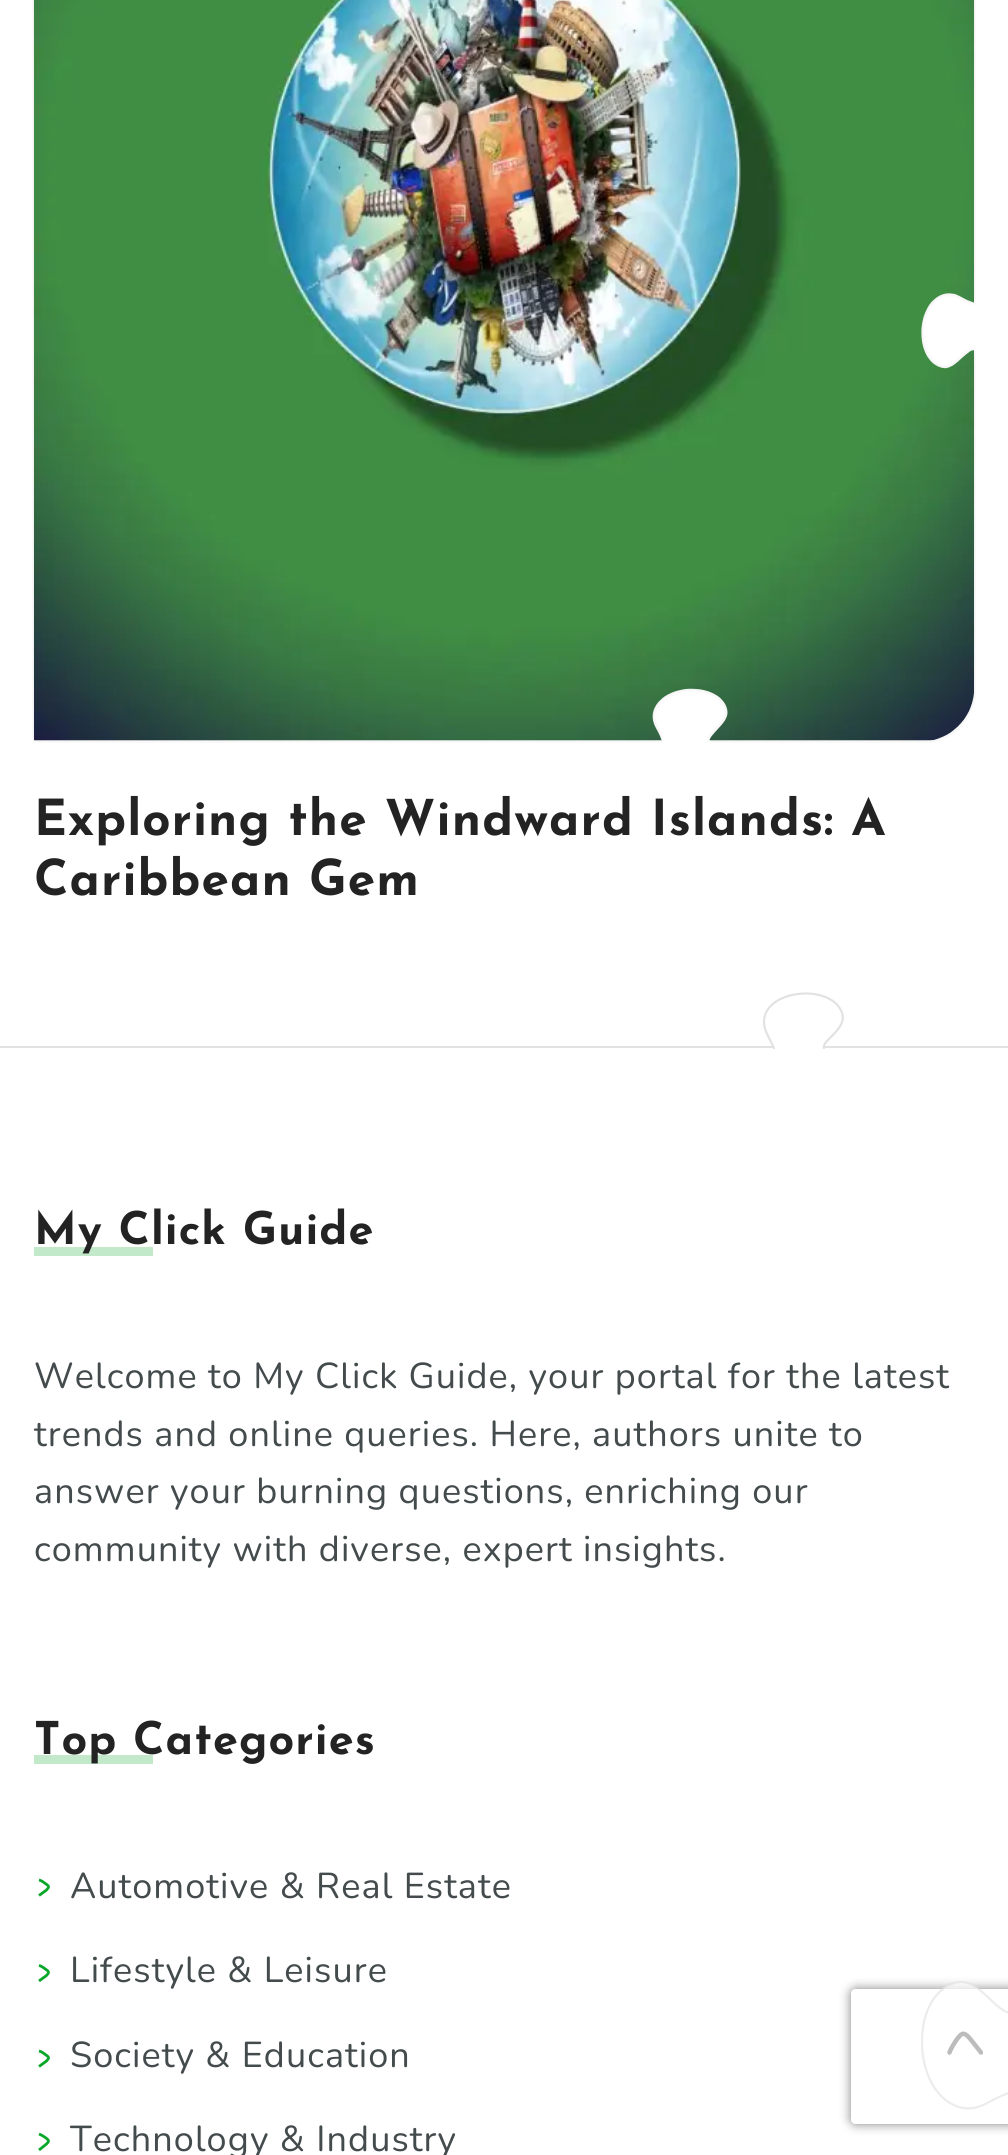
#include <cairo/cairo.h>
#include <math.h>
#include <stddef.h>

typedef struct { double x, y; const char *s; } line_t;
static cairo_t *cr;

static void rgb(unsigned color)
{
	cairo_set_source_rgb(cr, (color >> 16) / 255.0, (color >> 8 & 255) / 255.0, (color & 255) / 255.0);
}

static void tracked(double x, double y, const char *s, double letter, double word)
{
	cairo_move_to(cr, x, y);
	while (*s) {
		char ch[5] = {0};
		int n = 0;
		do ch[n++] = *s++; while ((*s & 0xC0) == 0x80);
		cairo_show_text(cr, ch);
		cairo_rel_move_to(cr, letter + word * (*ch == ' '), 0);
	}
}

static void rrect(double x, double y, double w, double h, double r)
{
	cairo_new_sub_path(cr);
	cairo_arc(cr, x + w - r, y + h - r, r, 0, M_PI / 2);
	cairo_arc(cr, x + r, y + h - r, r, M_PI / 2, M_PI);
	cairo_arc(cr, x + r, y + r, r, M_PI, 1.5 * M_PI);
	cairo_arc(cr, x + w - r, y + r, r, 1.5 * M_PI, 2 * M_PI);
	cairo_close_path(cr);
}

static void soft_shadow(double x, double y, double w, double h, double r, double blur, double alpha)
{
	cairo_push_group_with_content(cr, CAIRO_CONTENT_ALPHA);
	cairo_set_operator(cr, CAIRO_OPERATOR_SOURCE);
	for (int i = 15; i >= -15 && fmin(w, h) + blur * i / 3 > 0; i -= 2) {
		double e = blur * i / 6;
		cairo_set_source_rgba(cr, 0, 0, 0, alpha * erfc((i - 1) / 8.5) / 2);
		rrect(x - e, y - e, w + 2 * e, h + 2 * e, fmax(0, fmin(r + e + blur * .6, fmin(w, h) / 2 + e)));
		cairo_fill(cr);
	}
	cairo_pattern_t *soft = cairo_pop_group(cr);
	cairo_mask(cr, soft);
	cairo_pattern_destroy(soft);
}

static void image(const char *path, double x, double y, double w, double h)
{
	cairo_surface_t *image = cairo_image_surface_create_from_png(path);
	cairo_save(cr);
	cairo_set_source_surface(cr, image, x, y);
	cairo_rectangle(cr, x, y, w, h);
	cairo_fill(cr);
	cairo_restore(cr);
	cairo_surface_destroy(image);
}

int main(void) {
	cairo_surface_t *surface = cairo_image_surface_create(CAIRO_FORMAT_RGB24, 1008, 2155);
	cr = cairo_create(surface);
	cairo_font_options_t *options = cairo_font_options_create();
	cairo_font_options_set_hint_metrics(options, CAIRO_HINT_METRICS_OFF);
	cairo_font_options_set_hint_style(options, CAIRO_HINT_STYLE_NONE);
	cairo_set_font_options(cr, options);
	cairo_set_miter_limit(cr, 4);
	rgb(0xffffff);
	cairo_paint(cr);
	image("img/1.png", 32, 0, 944, 743);
	rgb(0xe2e2e2);
	cairo_rectangle(cr, 0, 1046, 1008, 2);
	cairo_fill(cr);
	rgb(0xffffff);
	cairo_new_path(cr);
	cairo_move_to(cr, 824, 1049);
	cairo_curve_to(cr, 821, 1040, 849, 1029, 841, 1011);
	cairo_curve_to(cr, 829, 982, 762, 990, 764, 1023);
	cairo_curve_to(cr, 764, 1032, 771, 1041, 774, 1049);
	cairo_fill(cr);
	cairo_save(cr);
	cairo_rectangle(cr, 763, 992, 81, 57);
	cairo_clip(cr);
	cairo_new_path(cr);
	cairo_move_to(cr, 824, 1048.5);
	cairo_curve_to(cr, 821, 1040, 849, 1029, 841.5, 1011.5);
	cairo_curve_to(cr, 829, 982.5, 762, 990, 764, 1023.5);
	cairo_curve_to(cr, 764.5, 1031.5, 771, 1040.5, 774, 1048.5);
	rgb(0xe2e2e2);
	cairo_set_line_width(cr, 2.2);
	cairo_set_line_cap(cr, CAIRO_LINE_CAP_ROUND);
	cairo_set_line_join(cr, CAIRO_LINE_JOIN_ROUND);
	cairo_stroke(cr);
	cairo_restore(cr);
	rgb(0xc2e9ca);
	cairo_rectangle(cr, 34, 1247, 119, 9);
	cairo_fill(cr);
	cairo_rectangle(cr, 34, 1755, 119, 9);
	cairo_fill(cr);
	cairo_new_path(cr);
	cairo_move_to(cr, 39, 1895.5);
	cairo_line_to(cr, 46.5, 1890);
	cairo_curve_to(cr, 49.5, 1887, 49, 1886, 46, 1884);
	cairo_curve_to(cr, 44, 1882.5, 41.5, 1880.5, 39, 1880);
	rgb(0x09a729);
	cairo_set_line_width(cr, 2.8);
	cairo_stroke(cr);
	cairo_new_path(cr);
	cairo_move_to(cr, 39, 1981);
	cairo_line_to(cr, 46.5, 1975.5);
	cairo_curve_to(cr, 49.5, 1972.5, 49, 1971.5, 46, 1969.5);
	cairo_curve_to(cr, 44, 1968, 41.5, 1966, 39, 1965.5);
	cairo_stroke(cr);
	cairo_new_path(cr);
	cairo_move_to(cr, 39, 2066.5);
	cairo_line_to(cr, 46.5, 2061);
	cairo_curve_to(cr, 49.5, 2058, 49, 2057, 46, 2055);
	cairo_curve_to(cr, 44, 2053.5, 41.5, 2051.5, 39, 2051);
	cairo_stroke(cr);
	cairo_new_path(cr);
	cairo_move_to(cr, 39, 2150);
	cairo_line_to(cr, 46.5, 2144);
	cairo_curve_to(cr, 49.5, 2141, 49, 2140.5, 46, 2138);
	cairo_curve_to(cr, 44, 2136.5, 41.5, 2135, 39, 2134);
	cairo_stroke(cr);
	cairo_save(cr);
	cairo_set_fill_rule(cr, CAIRO_FILL_RULE_EVEN_ODD);
	cairo_new_path(cr);
	cairo_move_to(cr, 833, 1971);
	cairo_line_to(cr, 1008, 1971);
	cairo_line_to(cr, 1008, 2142);
	cairo_line_to(cr, 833, 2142);
	cairo_close_path(cr);
	cairo_move_to(cr, 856, 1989);
	cairo_line_to(cr, 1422, 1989);
	cairo_curve_to(cr, 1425, 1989, 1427, 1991, 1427, 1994);
	cairo_line_to(cr, 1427, 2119);
	cairo_curve_to(cr, 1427, 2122, 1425, 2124, 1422, 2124);
	cairo_line_to(cr, 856, 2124);
	cairo_curve_to(cr, 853, 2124, 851, 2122, 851, 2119);
	cairo_line_to(cr, 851, 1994);
	cairo_curve_to(cr, 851, 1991, 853, 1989, 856, 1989);
	cairo_close_path(cr);
	cairo_clip(cr);
	rgb(0x808080);
	soft_shadow(851, 1989, 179, 135, 5, 5.5, 1);
	cairo_restore(cr);
	image("img/2.png", 921, 1981, 87, 129);
	cairo_save(cr);
	cairo_new_path(cr);
	cairo_move_to(cr, 947, 2027);
	cairo_line_to(cr, 947, 2063);
	cairo_line_to(cr, 983, 2063);
	cairo_line_to(cr, 983, 2027);
	cairo_close_path(cr);
	cairo_clip(cr);
	cairo_new_path(cr);
	cairo_move_to(cr, 949.5, 2052.5);
	cairo_curve_to(cr, 951, 2048, 955, 2042, 957.5, 2038.5);
	cairo_curve_to(cr, 962, 2033, 963.5, 2031.5, 969.5, 2038);
	cairo_line_to(cr, 981, 2052.5);
	rgb(0xbcbcbc);
	cairo_set_line_width(cr, 4.5);
	cairo_set_line_cap(cr, CAIRO_LINE_CAP_ROUND);
	cairo_set_line_join(cr, CAIRO_LINE_JOIN_ROUND);
	cairo_stroke(cr);
	cairo_restore(cr);
	cairo_select_font_face(cr, "Josefin Sans Thin", CAIRO_FONT_SLANT_NORMAL, CAIRO_FONT_WEIGHT_NORMAL);
	cairo_set_font_size(cr, 49.5);
	rgb(0x242323);
	tracked(34, 835, "Exploring the Windward Islands: A", 1.08, 0);
	tracked(34, 895, "Caribbean Gem", 1.08, 0);
	cairo_set_font_size(cr, 45);
	tracked(34, 1244, "My Click Guide", 1.08, 0);
	cairo_select_font_face(cr, "Nunito ExtraLight", CAIRO_FONT_SLANT_NORMAL, CAIRO_FONT_WEIGHT_NORMAL);
	cairo_set_font_size(cr, 36);
	rgb(0x444b4d);
	{
		static const line_t items[] = {
			{34, 1388, "Welcome to My Click Guide, your portal for the latest"},
			{34, 1446, "trends and online queries. Here, authors unite to"},
			{34, 1503, "answer your burning questions, enriching our"},
			{34, 1561, "community with diverse, expert insights."},
		};
		for (size_t i = 0; i < sizeof items / sizeof *items; i++) {
			tracked(items[i].x, items[i].y, items[i].s, 1.08, 0);
		}
	}
	cairo_select_font_face(cr, "Josefin Sans Thin", CAIRO_FONT_SLANT_NORMAL, CAIRO_FONT_WEIGHT_NORMAL);
	cairo_set_font_size(cr, 45);
	rgb(0x242323);
	tracked(34, 1754, "Top Categories", 1.08, 0);
	cairo_select_font_face(cr, "Nunito ExtraLight", CAIRO_FONT_SLANT_NORMAL, CAIRO_FONT_WEIGHT_NORMAL);
	cairo_set_font_size(cr, 36);
	rgb(0x444b4d);
	{
		static const line_t items[] = {
			{70, 1898, "Automotive & Real Estate"},
			{70, 1982, "Lifestyle & Leisure"},
			{70, 2067, "Society & Education"},
			{70, 2151, "Technology & Industry"},
		};
		for (size_t i = 0; i < sizeof items / sizeof *items; i++) {
			tracked(items[i].x, items[i].y, items[i].s, 1.08, 0);
		}
	}
	cairo_surface_write_to_png(surface, "page.png");
	cairo_font_options_destroy(options);
	cairo_destroy(cr);
	cairo_surface_destroy(surface);
	return 0;
}
